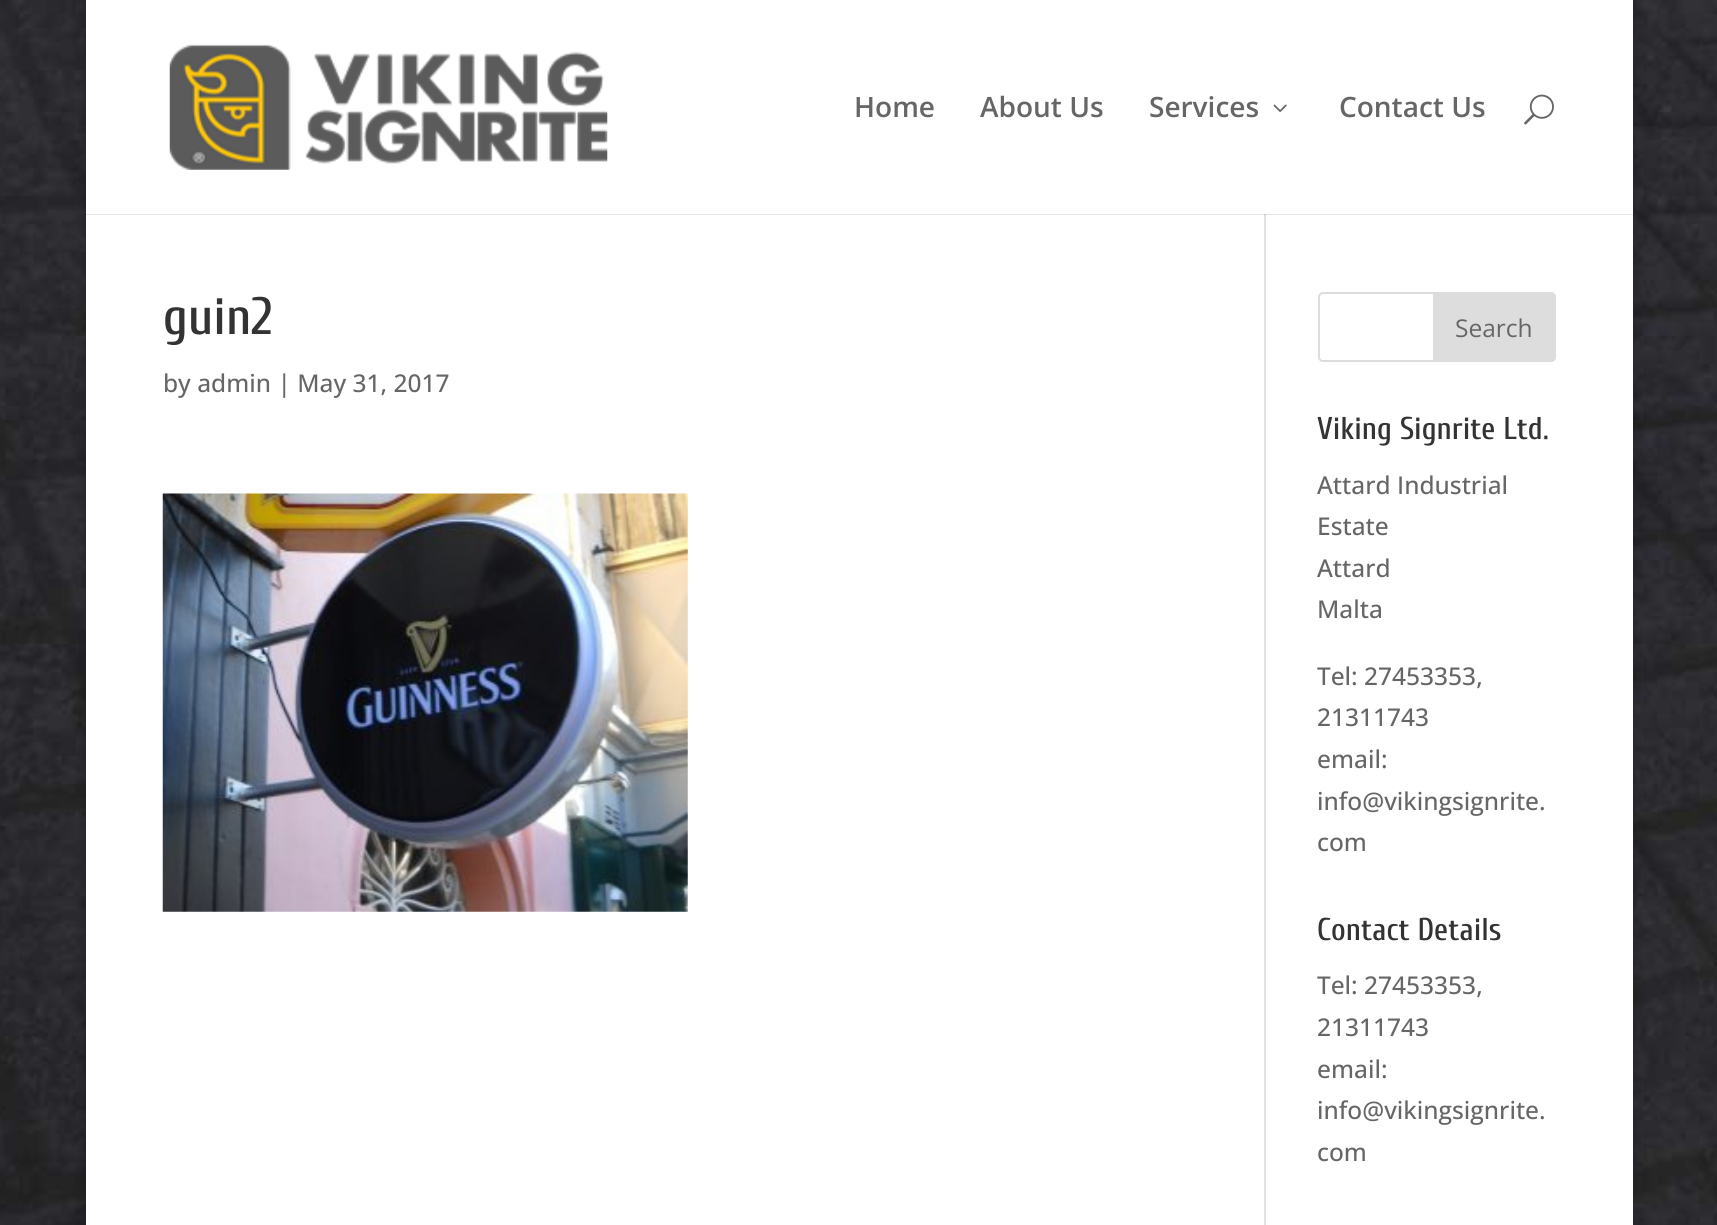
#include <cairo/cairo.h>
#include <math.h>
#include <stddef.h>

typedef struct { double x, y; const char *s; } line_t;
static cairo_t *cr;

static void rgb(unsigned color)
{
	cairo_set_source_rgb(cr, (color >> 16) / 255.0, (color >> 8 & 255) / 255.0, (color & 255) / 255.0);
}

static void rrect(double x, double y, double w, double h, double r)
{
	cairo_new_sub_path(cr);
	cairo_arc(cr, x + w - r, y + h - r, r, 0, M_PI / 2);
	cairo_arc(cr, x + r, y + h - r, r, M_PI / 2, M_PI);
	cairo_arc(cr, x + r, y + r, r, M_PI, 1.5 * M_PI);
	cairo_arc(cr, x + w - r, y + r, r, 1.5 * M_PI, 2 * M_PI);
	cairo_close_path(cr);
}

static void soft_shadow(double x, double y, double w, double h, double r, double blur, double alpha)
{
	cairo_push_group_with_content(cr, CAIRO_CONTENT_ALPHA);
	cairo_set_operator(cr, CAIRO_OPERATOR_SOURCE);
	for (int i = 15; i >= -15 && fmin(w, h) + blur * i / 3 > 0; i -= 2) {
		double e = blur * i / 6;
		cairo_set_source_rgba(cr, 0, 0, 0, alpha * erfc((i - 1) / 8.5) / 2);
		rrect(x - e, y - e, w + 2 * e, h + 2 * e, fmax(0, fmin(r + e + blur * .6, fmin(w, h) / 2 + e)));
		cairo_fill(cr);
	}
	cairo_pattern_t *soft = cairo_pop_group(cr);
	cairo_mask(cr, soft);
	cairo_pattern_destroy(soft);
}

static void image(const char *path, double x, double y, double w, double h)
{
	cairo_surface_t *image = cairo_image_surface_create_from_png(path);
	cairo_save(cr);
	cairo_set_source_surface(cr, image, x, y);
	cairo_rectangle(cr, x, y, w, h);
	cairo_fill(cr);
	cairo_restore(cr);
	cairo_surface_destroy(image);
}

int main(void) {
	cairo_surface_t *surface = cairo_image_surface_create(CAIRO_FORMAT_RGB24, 1717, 1225);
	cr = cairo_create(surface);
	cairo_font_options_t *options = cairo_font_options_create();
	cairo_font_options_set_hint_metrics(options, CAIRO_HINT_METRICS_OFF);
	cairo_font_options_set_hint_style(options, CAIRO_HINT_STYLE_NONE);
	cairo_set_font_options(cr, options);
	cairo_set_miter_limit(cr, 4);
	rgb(0xffffff);
	cairo_paint(cr);
	image("img/1.png", 0, 0, 1717, 1225);
	rgb(0x000000);
	soft_shadow(86, 0, 1547, 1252, 0, 9, 0.2);
	rgb(0xffffff);
	cairo_rectangle(cr, 86, 0, 1547, 1225);
	cairo_fill(cr);
	rgb(0xe2e2e2);
	cairo_rectangle(cr, 1264, 214, 2, 1011);
	cairo_fill(cr);
	cairo_set_source_rgba(cr, 0, 0, 0, 0.1);
	cairo_new_path(cr);
	cairo_move_to(cr, 86, 214);
	cairo_line_to(cr, 86, 215);
	cairo_line_to(cr, 1633, 215);
	cairo_line_to(cr, 1633, 2);
	cairo_line_to(cr, 1633, 214);
	cairo_close_path(cr);
	cairo_fill(cr);
	image("img/2.png", 169, 44, 439, 126);
	image("img/3.png", 1273, 104, 14, 8);
	image("img/4.png", 1524, 94, 30, 31);
	image("img/5.png", 162, 493, 526, 419);
	rrect(1319, 293, 236, 68, 4);
	rgb(0xdddddd);
	cairo_stroke(cr);
	cairo_new_path(cr);
	cairo_move_to(cr, 1434, 293);
	cairo_line_to(cr, 1551, 293);
	cairo_curve_to(cr, 1553, 293, 1555, 295, 1555, 297);
	cairo_line_to(cr, 1555, 357);
	cairo_curve_to(cr, 1555, 359, 1553, 361, 1551, 361);
	cairo_line_to(cr, 1434, 361);
	cairo_close_path(cr);
	cairo_fill_preserve(cr);
	cairo_stroke(cr);
	cairo_select_font_face(cr, "Open Sans SemiBold", CAIRO_FONT_SLANT_NORMAL, CAIRO_FONT_WEIGHT_NORMAL);
	cairo_set_font_size(cr, 28);
	rgb(0x666666);
	{
		static const line_t items[] = {
			{854, 117, "Home"},
			{980, 117, "About Us"},
			{1149, 117, "Services"},
			{1339, 117, "Contact Us"},
		};
		for (size_t i = 0; i < sizeof items / sizeof *items; i++) {
			cairo_move_to(cr, items[i].x, items[i].y);
			cairo_show_text(cr, items[i].s);
		}
	}
	cairo_select_font_face(cr, "Cuprum Medium", CAIRO_FONT_SLANT_NORMAL, CAIRO_FONT_WEIGHT_NORMAL);
	cairo_set_font_size(cr, 52.5);
	rgb(0x333333);
	cairo_move_to(cr, 163, 334);
	cairo_show_text(cr, "guin2");
	cairo_select_font_face(cr, "Open Sans Medium", CAIRO_FONT_SLANT_NORMAL, CAIRO_FONT_WEIGHT_NORMAL);
	cairo_set_font_size(cr, 24.5);
	rgb(0x666666);
	cairo_move_to(cr, 163, 392);
	cairo_show_text(cr, "by admin | May 31, 2017");
	cairo_select_font_face(cr, "Open Sans", CAIRO_FONT_SLANT_NORMAL, CAIRO_FONT_WEIGHT_NORMAL);
	cairo_move_to(cr, 1455, 337);
	cairo_show_text(cr, "Search");
	cairo_select_font_face(cr, "Cuprum Medium", CAIRO_FONT_SLANT_NORMAL, CAIRO_FONT_WEIGHT_NORMAL);
	cairo_set_font_size(cr, 31.5);
	rgb(0x333333);
	cairo_move_to(cr, 1317, 439);
	cairo_show_text(cr, "Viking Signrite Ltd.");
	cairo_select_font_face(cr, "Open Sans Medium", CAIRO_FONT_SLANT_NORMAL, CAIRO_FONT_WEIGHT_NORMAL);
	cairo_set_font_size(cr, 24.5);
	rgb(0x666666);
	{
		static const line_t items[] = {
			{1317, 494, "Attard Industrial"},
			{1317, 535, "Estate"},
			{1317, 577, "Attard"},
			{1317, 618, "Malta"},
			{1317, 685, "Tel: 27453353,"},
			{1317, 726, "21311743"},
			{1317, 768, "email:"},
			{1317, 810, "info@vikingsignrite."},
			{1317, 851, "com"},
		};
		for (size_t i = 0; i < sizeof items / sizeof *items; i++) {
			cairo_move_to(cr, items[i].x, items[i].y);
			cairo_show_text(cr, items[i].s);
		}
	}
	cairo_select_font_face(cr, "Cuprum Medium", CAIRO_FONT_SLANT_NORMAL, CAIRO_FONT_WEIGHT_NORMAL);
	cairo_set_font_size(cr, 31.5);
	rgb(0x333333);
	cairo_move_to(cr, 1317, 940);
	cairo_show_text(cr, "Contact Details");
	cairo_select_font_face(cr, "Open Sans Medium", CAIRO_FONT_SLANT_NORMAL, CAIRO_FONT_WEIGHT_NORMAL);
	cairo_set_font_size(cr, 24.5);
	rgb(0x666666);
	{
		static const line_t items[] = {
			{1317, 994, "Tel: 27453353,"},
			{1317, 1036, "21311743"},
			{1317, 1078, "email:"},
			{1317, 1119, "info@vikingsignrite."},
			{1317, 1161, "com"},
		};
		for (size_t i = 0; i < sizeof items / sizeof *items; i++) {
			cairo_move_to(cr, items[i].x, items[i].y);
			cairo_show_text(cr, items[i].s);
		}
	}
	cairo_surface_write_to_png(surface, "page.png");
	cairo_font_options_destroy(options);
	cairo_destroy(cr);
	cairo_surface_destroy(surface);
	return 0;
}
